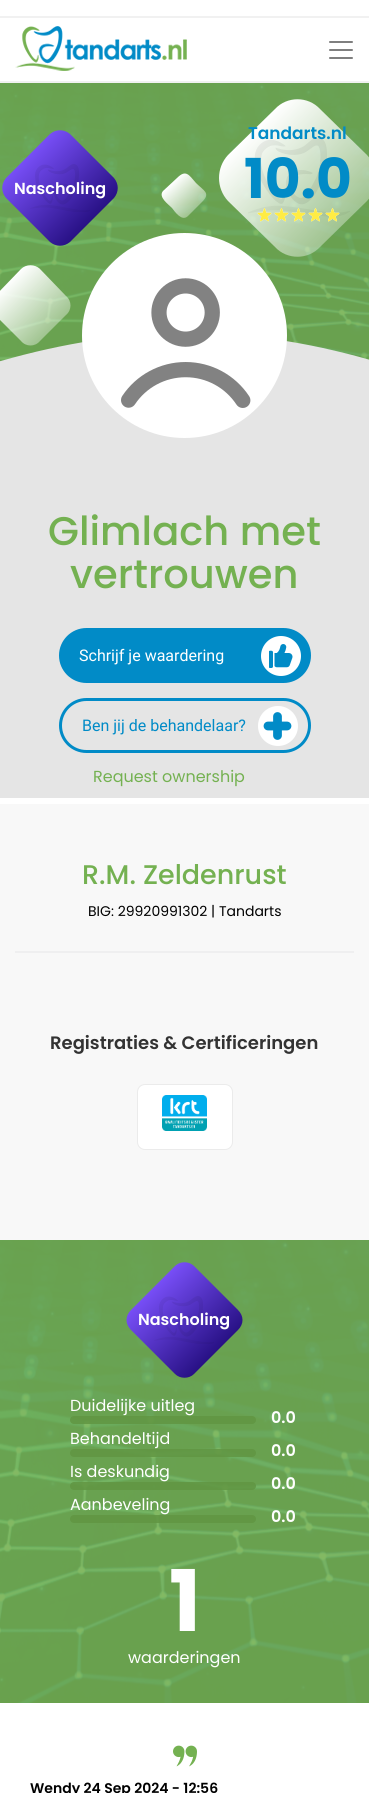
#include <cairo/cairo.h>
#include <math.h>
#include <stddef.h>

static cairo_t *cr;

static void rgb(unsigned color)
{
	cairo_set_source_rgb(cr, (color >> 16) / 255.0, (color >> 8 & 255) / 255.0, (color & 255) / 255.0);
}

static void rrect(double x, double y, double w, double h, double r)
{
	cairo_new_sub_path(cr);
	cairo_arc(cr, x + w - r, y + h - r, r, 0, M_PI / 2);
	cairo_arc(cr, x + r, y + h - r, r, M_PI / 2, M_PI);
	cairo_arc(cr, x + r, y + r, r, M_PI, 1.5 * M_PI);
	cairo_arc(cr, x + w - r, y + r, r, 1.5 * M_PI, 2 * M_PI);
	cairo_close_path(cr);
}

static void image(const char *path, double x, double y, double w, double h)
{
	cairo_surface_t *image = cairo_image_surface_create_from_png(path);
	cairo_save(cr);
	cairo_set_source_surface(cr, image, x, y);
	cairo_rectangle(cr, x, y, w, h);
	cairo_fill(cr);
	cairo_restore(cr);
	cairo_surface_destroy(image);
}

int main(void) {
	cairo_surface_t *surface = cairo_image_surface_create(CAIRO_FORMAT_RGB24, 369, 1793);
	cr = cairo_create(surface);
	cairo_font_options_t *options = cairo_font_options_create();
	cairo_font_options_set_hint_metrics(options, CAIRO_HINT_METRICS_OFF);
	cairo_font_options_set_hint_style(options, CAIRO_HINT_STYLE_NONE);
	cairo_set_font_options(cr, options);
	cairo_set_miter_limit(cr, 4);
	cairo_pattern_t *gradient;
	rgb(0xffffff);
	cairo_paint(cr);
	rgb(0xf1f1f1);
	cairo_rectangle(cr, 0, 16, 369, 2);
	cairo_fill(cr);
	cairo_rectangle(cr, 0, 81, 369, 2);
	cairo_fill(cr);
	image("img/1.png", 15, 26, 172, 45);
	image("img/2.png", 329, 41, 24, 18);
	rgb(0xe5e5e5);
	cairo_rectangle(cr, 0, 443, 369, 355);
	cairo_fill(cr);
	rgb(0x75b151);
	cairo_rectangle(cr, 0, 83, 369, 279);
	cairo_fill(cr);
	image("img/3.png", 0, 83, 369, 279);
	rgb(0xe5e5e5);
	cairo_set_fill_rule(cr, CAIRO_FILL_RULE_EVEN_ODD);
	cairo_new_path(cr);
	cairo_move_to(cr, 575, 443);
	cairo_line_to(cr, -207, 443);
	cairo_curve_to(cr, 92, 299, 279, 294, 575, 443);
	cairo_close_path(cr);
	cairo_fill(cr);
	rgb(0xffffff);
	cairo_arc(cr, 184.5, 335.5, 102.5, 0, 2 * M_PI);
	cairo_fill(cr);
	gradient = cairo_pattern_create_linear(28, 156, 92, 220);
	cairo_pattern_add_color_stop_rgba(gradient, 0, 0.467, 0.306, 0.965, 1);
	cairo_pattern_add_color_stop_rgba(gradient, 1, 0.157, 0.067, 0.522, 1);
	cairo_set_source(cr, gradient);
	cairo_pattern_destroy(gradient);
	cairo_set_fill_rule(cr, CAIRO_FILL_RULE_WINDING);
	cairo_new_path(cr);
	cairo_move_to(cr, 6, 178);
	cairo_line_to(cr, 50, 134);
	cairo_curve_to(cr, 56, 129, 64, 129, 70, 134);
	cairo_line_to(cr, 114, 178);
	cairo_curve_to(cr, 119, 184, 119, 192, 114, 198);
	cairo_line_to(cr, 70, 242);
	cairo_curve_to(cr, 64, 247, 56, 247, 50, 242);
	cairo_line_to(cr, 6, 198);
	cairo_curve_to(cr, 1, 192, 1, 184, 6, 178);
	cairo_close_path(cr);
	cairo_fill(cr);
	image("img/4.png", 30, 164, 60, 48);
	gradient = cairo_pattern_create_linear(172, 183, 196, 208);
	cairo_pattern_add_color_stop_rgba(gradient, 0, 1, 1, 1, 1);
	cairo_pattern_add_color_stop_rgba(gradient, 1, 1, 1, 1, 0.37);
	cairo_set_source(cr, gradient);
	cairo_pattern_destroy(gradient);
	cairo_new_path(cr);
	cairo_move_to(cr, 163, 191);
	cairo_line_to(cr, 177, 178);
	cairo_curve_to(cr, 186, 169, 189, 175, 196, 183);
	cairo_curve_to(cr, 204, 191, 211, 193, 202, 202);
	cairo_line_to(cr, 188, 216);
	cairo_curve_to(cr, 182, 222, 175, 212, 172, 208);
	cairo_curve_to(cr, 168, 204, 158, 197, 163, 191);
	cairo_close_path(cr);
	cairo_fill(cr);
	gradient = cairo_pattern_create_linear(252, 132, 343, 224);
	cairo_pattern_add_color_stop_rgba(gradient, 0, 1, 1, 1, 1);
	cairo_pattern_add_color_stop_rgba(gradient, 1, 1, 1, 1, 0.37);
	cairo_set_source(cr, gradient);
	cairo_pattern_destroy(gradient);
	cairo_new_path(cr);
	cairo_move_to(cr, 228, 155);
	cairo_line_to(cr, 275, 109);
	cairo_curve_to(cr, 287, 96, 308, 96, 320, 109);
	cairo_line_to(cr, 367, 155);
	cairo_curve_to(cr, 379, 168, 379, 188, 367, 201);
	cairo_line_to(cr, 320, 247);
	cairo_curve_to(cr, 308, 260, 287, 260, 275, 247);
	cairo_line_to(cr, 228, 201);
	cairo_curve_to(cr, 216, 188, 216, 168, 228, 155);
	cairo_close_path(cr);
	cairo_fill(cr);
	image("img/5.png", 248, 137, 102, 80);
	image("img/6.png", 257, 208, 83, 14);
	image("img/7.png", 257, 208, 83, 14);
	gradient = cairo_pattern_create_linear(7.6, 282, 53, 328);
	cairo_pattern_add_color_stop_rgba(gradient, 0, 1, 1, 1, 1);
	cairo_pattern_add_color_stop_rgba(gradient, 1, 1, 1, 1, 0.37);
	cairo_set_source(cr, gradient);
	cairo_pattern_destroy(gradient);
	cairo_new_path(cr);
	cairo_move_to(cr, -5, 296);
	cairo_line_to(cr, 21, 269);
	cairo_curve_to(cr, 26, 264, 35, 264, 40, 269);
	cairo_line_to(cr, 66, 296);
	cairo_curve_to(cr, 72, 301, 72, 310, 66, 315);
	cairo_line_to(cr, 40, 341);
	cairo_curve_to(cr, 35, 347, 26, 347, 21, 341);
	cairo_line_to(cr, -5, 315);
	cairo_curve_to(cr, -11, 310, -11, 301, -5, 296);
	cairo_close_path(cr);
	cairo_fill(cr);
	image("img/8.png", 121, 278, 130, 130);
	rgb(0x018bc7);
	rrect(59, 628, 252, 55, 27.5);
	cairo_fill(cr);
	image("img/9.png", 261, 636, 40, 40);
	rrect(60.5, 699.5, 249, 52, 26);
	cairo_set_line_width(cr, 3);
	cairo_stroke(cr);
	image("img/10.png", 258, 706, 40, 40);
	rgb(0xf8f8f8);
	cairo_rectangle(cr, 0, 804, 369, 436);
	cairo_fill(cr);
	rgb(0xefeff0);
	cairo_rectangle(cr, 15, 951, 339, 2);
	cairo_fill(cr);
	rgb(0xffffff);
	rrect(137, 1084, 96, 66, 8);
	cairo_fill(cr);
	rrect(137.5, 1084.5, 95, 65, 7.5);
	cairo_set_source_rgba(cr, 0, 0, 0, 0.08);
	cairo_set_line_width(cr, 1);
	cairo_stroke(cr);
	image("img/11.png", 162, 1095, 45, 36);
	rgb(0x75b151);
	cairo_rectangle(cr, 0, 1240, 369, 463);
	cairo_fill(cr);
	image("img/12.png", 0, 1240, 369, 463);
	gradient = cairo_pattern_create_linear(153, 1288, 216, 1352);
	cairo_pattern_add_color_stop_rgba(gradient, 0, 0.467, 0.306, 0.965, 1);
	cairo_pattern_add_color_stop_rgba(gradient, 1, 0.157, 0.067, 0.522, 1);
	cairo_set_source(cr, gradient);
	cairo_pattern_destroy(gradient);
	cairo_new_path(cr);
	cairo_move_to(cr, 131, 1310);
	cairo_line_to(cr, 175, 1266);
	cairo_curve_to(cr, 180, 1261, 189, 1261, 194, 1266);
	cairo_line_to(cr, 238, 1310);
	cairo_curve_to(cr, 244, 1316, 244, 1324, 238, 1330);
	cairo_line_to(cr, 194, 1374);
	cairo_curve_to(cr, 189, 1379, 180, 1379, 175, 1374);
	cairo_line_to(cr, 131, 1330);
	cairo_curve_to(cr, 125, 1324, 125, 1316, 131, 1310);
	cairo_close_path(cr);
	cairo_fill(cr);
	image("img/13.png", 154, 1296, 60, 48);
	cairo_set_source_rgba(cr, 0.38, 0.588, 0.259, 0.85);
	rrect(70, 1416, 186, 8, 4);
	cairo_fill(cr);
	rrect(70, 1449, 186, 8, 4);
	cairo_fill(cr);
	rrect(70, 1482, 186, 8, 4);
	cairo_fill(cr);
	rrect(70, 1515, 186, 8, 4);
	cairo_fill(cr);
	image("img/14.png", 173, 1745, 24, 22);
	cairo_select_font_face(cr, "Poppins SemiBold", CAIRO_FONT_SLANT_NORMAL, CAIRO_FONT_WEIGHT_NORMAL);
	cairo_set_font_size(cr, 16);
	rgb(0xffffff);
	cairo_move_to(cr, 14, 194);
	cairo_show_text(cr, "Nascholing");
	cairo_set_font_size(cr, 17);
	rgb(0x018bc7);
	cairo_move_to(cr, 248, 139);
	cairo_show_text(cr, "Tandarts.nl");
	cairo_select_font_face(cr, "Poppins", CAIRO_FONT_SLANT_NORMAL, CAIRO_FONT_WEIGHT_BOLD);
	cairo_set_font_size(cr, 55);
	cairo_move_to(cr, 244, 198);
	cairo_show_text(cr, "10.0");
	cairo_select_font_face(cr, "Poppins Medium", CAIRO_FONT_SLANT_NORMAL, CAIRO_FONT_WEIGHT_NORMAL);
	cairo_set_font_size(cr, 40);
	rgb(0x74b151);
	cairo_move_to(cr, 48, 545);
	cairo_show_text(cr, "Glimlach met");
	cairo_move_to(cr, 70, 588);
	cairo_show_text(cr, "vertrouwen");
	cairo_select_font_face(cr, "Roboto", CAIRO_FONT_SLANT_NORMAL, CAIRO_FONT_WEIGHT_NORMAL);
	cairo_set_font_size(cr, 16);
	rgb(0xffffff);
	cairo_move_to(cr, 79, 661);
	cairo_show_text(cr, "Schrijf je waardering");
	rgb(0x018bc7);
	cairo_move_to(cr, 82, 731);
	cairo_show_text(cr, "Ben jij de behandelaar?");
	cairo_select_font_face(cr, "Poppins", CAIRO_FONT_SLANT_NORMAL, CAIRO_FONT_WEIGHT_NORMAL);
	rgb(0x74b151);
	cairo_move_to(cr, 93, 782);
	cairo_show_text(cr, "Request ownership");
	cairo_select_font_face(cr, "Poppins Medium", CAIRO_FONT_SLANT_NORMAL, CAIRO_FONT_WEIGHT_NORMAL);
	cairo_set_font_size(cr, 27);
	cairo_move_to(cr, 82, 884);
	cairo_show_text(cr, "R.M. Zeldenrust");
	cairo_select_font_face(cr, "Poppins", CAIRO_FONT_SLANT_NORMAL, CAIRO_FONT_WEIGHT_NORMAL);
	cairo_set_font_size(cr, 14);
	rgb(0x000000);
	cairo_move_to(cr, 88, 916);
	cairo_show_text(cr, "BIG: 29920991302 | Tandarts");
	cairo_select_font_face(cr, "Poppins SemiBold", CAIRO_FONT_SLANT_NORMAL, CAIRO_FONT_WEIGHT_NORMAL);
	cairo_set_font_size(cr, 18);
	rgb(0x333333);
	cairo_move_to(cr, 50, 1049);
	cairo_show_text(cr, "Registraties & Certificeringen");
	cairo_set_font_size(cr, 16);
	rgb(0xffffff);
	cairo_move_to(cr, 138, 1325);
	cairo_show_text(cr, "Nascholing");
	cairo_select_font_face(cr, "Poppins", CAIRO_FONT_SLANT_NORMAL, CAIRO_FONT_WEIGHT_NORMAL);
	cairo_move_to(cr, 70, 1411);
	cairo_show_text(cr, "Duidelijke uitleg");
	cairo_select_font_face(cr, "Poppins SemiBold", CAIRO_FONT_SLANT_NORMAL, CAIRO_FONT_WEIGHT_NORMAL);
	cairo_move_to(cr, 271, 1423);
	cairo_show_text(cr, "0.0");
	cairo_select_font_face(cr, "Poppins", CAIRO_FONT_SLANT_NORMAL, CAIRO_FONT_WEIGHT_NORMAL);
	cairo_move_to(cr, 70, 1444);
	cairo_show_text(cr, "Behandeltijd");
	cairo_select_font_face(cr, "Poppins SemiBold", CAIRO_FONT_SLANT_NORMAL, CAIRO_FONT_WEIGHT_NORMAL);
	cairo_move_to(cr, 271, 1456);
	cairo_show_text(cr, "0.0");
	cairo_select_font_face(cr, "Poppins", CAIRO_FONT_SLANT_NORMAL, CAIRO_FONT_WEIGHT_NORMAL);
	cairo_move_to(cr, 70, 1477);
	cairo_show_text(cr, "Is deskundig");
	cairo_select_font_face(cr, "Poppins SemiBold", CAIRO_FONT_SLANT_NORMAL, CAIRO_FONT_WEIGHT_NORMAL);
	cairo_move_to(cr, 271, 1489);
	cairo_show_text(cr, "0.0");
	cairo_select_font_face(cr, "Poppins", CAIRO_FONT_SLANT_NORMAL, CAIRO_FONT_WEIGHT_NORMAL);
	cairo_move_to(cr, 70, 1510);
	cairo_show_text(cr, "Aanbeveling");
	cairo_select_font_face(cr, "Poppins SemiBold", CAIRO_FONT_SLANT_NORMAL, CAIRO_FONT_WEIGHT_NORMAL);
	cairo_move_to(cr, 271, 1522);
	cairo_show_text(cr, "0.0");
	cairo_select_font_face(cr, "Poppins", CAIRO_FONT_SLANT_NORMAL, CAIRO_FONT_WEIGHT_BOLD);
	cairo_set_font_size(cr, 85);
	cairo_move_to(cr, 169, 1631);
	cairo_show_text(cr, "1");
	cairo_select_font_face(cr, "Poppins", CAIRO_FONT_SLANT_NORMAL, CAIRO_FONT_WEIGHT_NORMAL);
	cairo_set_font_size(cr, 16);
	cairo_move_to(cr, 128, 1663);
	cairo_show_text(cr, "waarderingen");
	cairo_select_font_face(cr, "Poppins SemiBold", CAIRO_FONT_SLANT_NORMAL, CAIRO_FONT_WEIGHT_NORMAL);
	cairo_set_font_size(cr, 14);
	rgb(0x000000);
	cairo_move_to(cr, 30, 1793);
	cairo_show_text(cr, "Wendy 24 Sep 2024 - 12:56");
	cairo_surface_write_to_png(surface, "page.png");
	cairo_font_options_destroy(options);
	cairo_destroy(cr);
	cairo_surface_destroy(surface);
	return 0;
}
